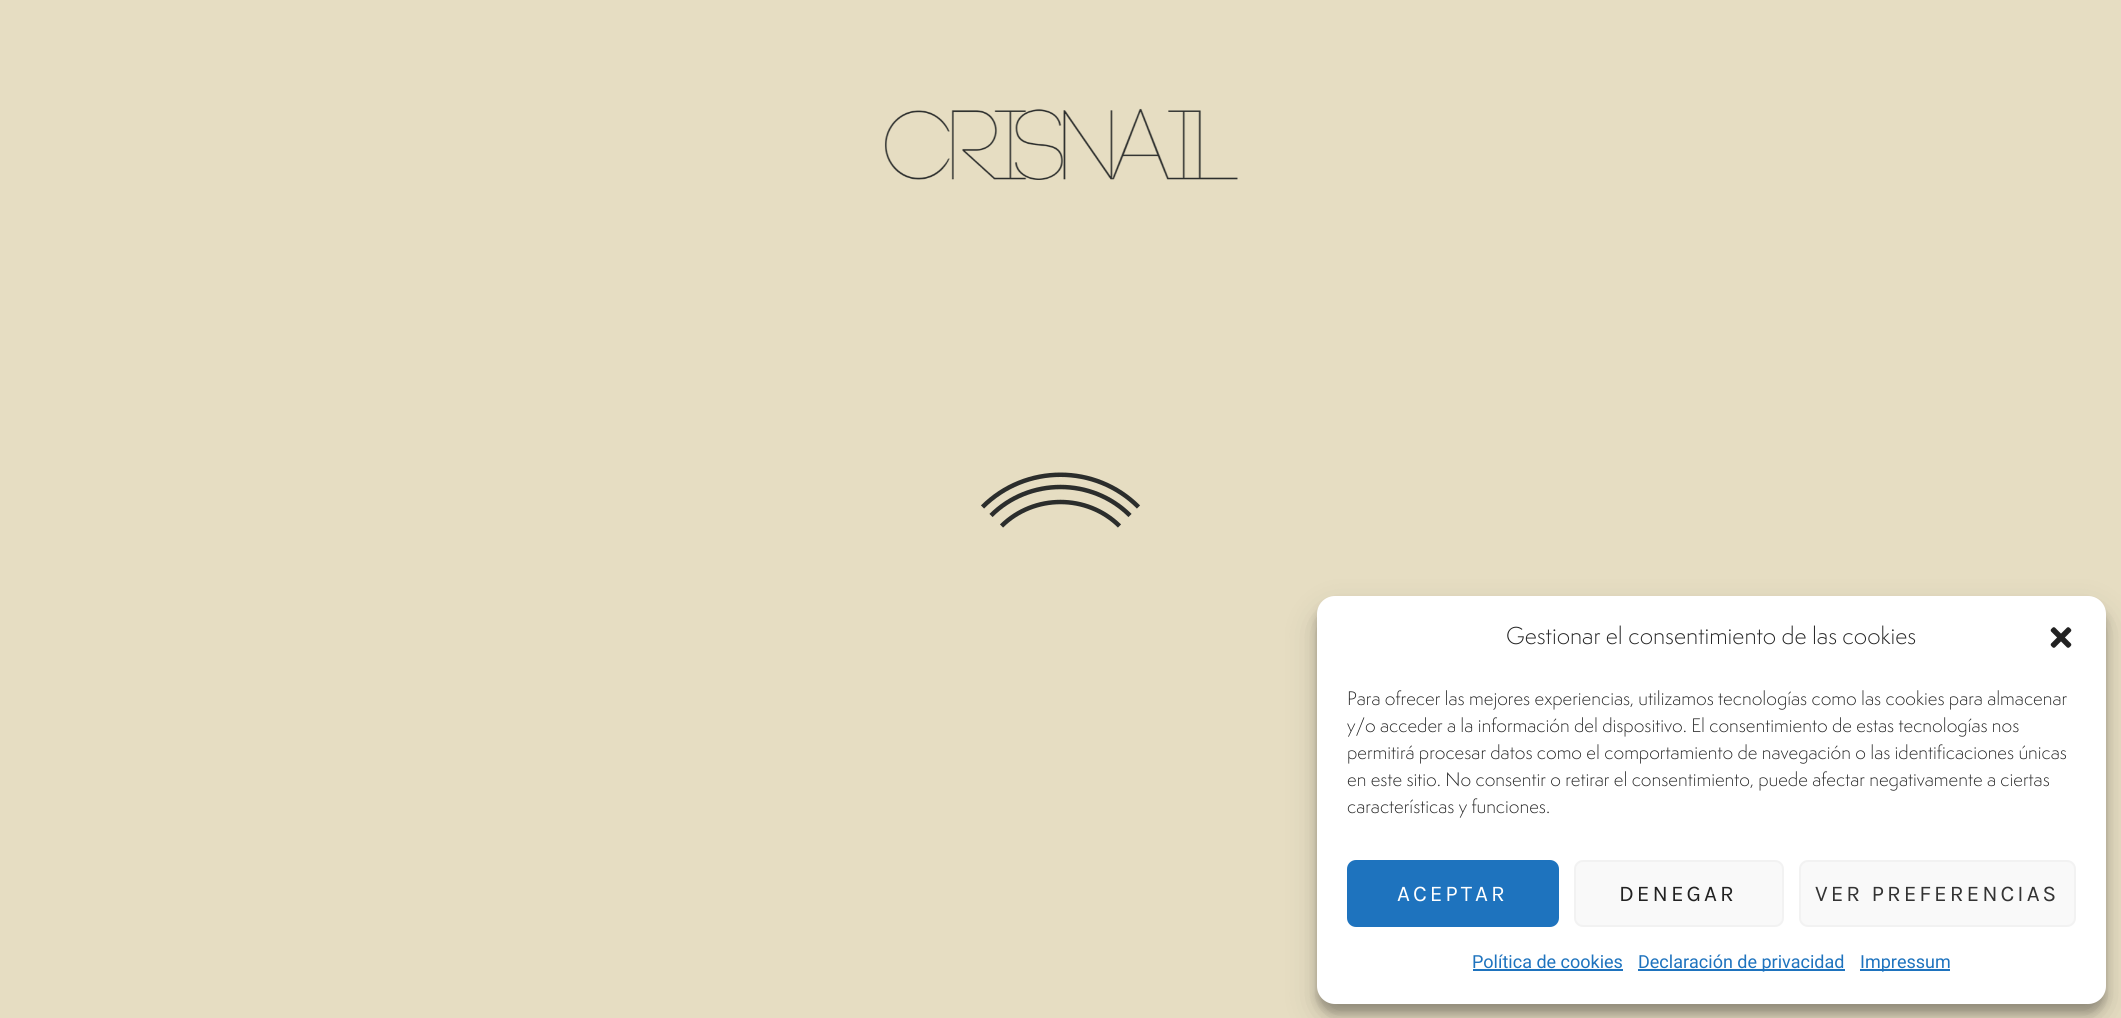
#include <cairo/cairo.h>
#include <math.h>
#include <stddef.h>

typedef struct { double x, y; const char *s; } line_t;
typedef struct { double x, y, w, h; unsigned color; } box_t;
static cairo_t *cr;

static void rgb(unsigned color)
{
	cairo_set_source_rgb(cr, (color >> 16) / 255.0, (color >> 8 & 255) / 255.0, (color & 255) / 255.0);
}

static void tracked(double x, double y, const char *s, double letter, double word)
{
	cairo_move_to(cr, x, y);
	while (*s) {
		char ch[5] = {0};
		int n = 0;
		do ch[n++] = *s++; while ((*s & 0xC0) == 0x80);
		cairo_show_text(cr, ch);
		cairo_rel_move_to(cr, letter + word * (*ch == ' '), 0);
	}
}

static void rrect(double x, double y, double w, double h, double r)
{
	cairo_new_sub_path(cr);
	cairo_arc(cr, x + w - r, y + h - r, r, 0, M_PI / 2);
	cairo_arc(cr, x + r, y + h - r, r, M_PI / 2, M_PI);
	cairo_arc(cr, x + r, y + r, r, M_PI, 1.5 * M_PI);
	cairo_arc(cr, x + w - r, y + r, r, 1.5 * M_PI, 2 * M_PI);
	cairo_close_path(cr);
}

static void soft_shadow(double x, double y, double w, double h, double r, double blur, double alpha)
{
	cairo_push_group_with_content(cr, CAIRO_CONTENT_ALPHA);
	cairo_set_operator(cr, CAIRO_OPERATOR_SOURCE);
	for (int i = 15; i >= -15 && fmin(w, h) + blur * i / 3 > 0; i -= 2) {
		double e = blur * i / 6;
		cairo_set_source_rgba(cr, 0, 0, 0, alpha * erfc((i - 1) / 8.5) / 2);
		rrect(x - e, y - e, w + 2 * e, h + 2 * e, fmax(0, fmin(r + e + blur * .6, fmin(w, h) / 2 + e)));
		cairo_fill(cr);
	}
	cairo_pattern_t *soft = cairo_pop_group(cr);
	cairo_mask(cr, soft);
	cairo_pattern_destroy(soft);
}

static void image(const char *path, double x, double y, double w, double h)
{
	cairo_surface_t *image = cairo_image_surface_create_from_png(path);
	cairo_save(cr);
	cairo_set_source_surface(cr, image, x, y);
	cairo_rectangle(cr, x, y, w, h);
	cairo_fill(cr);
	cairo_restore(cr);
	cairo_surface_destroy(image);
}

int main(void) {
	cairo_surface_t *surface = cairo_image_surface_create(CAIRO_FORMAT_RGB24, 2121, 1018);
	cr = cairo_create(surface);
	cairo_font_options_t *options = cairo_font_options_create();
	cairo_font_options_set_hint_metrics(options, CAIRO_HINT_METRICS_OFF);
	cairo_font_options_set_hint_style(options, CAIRO_HINT_STYLE_NONE);
	cairo_set_font_options(cr, options);
	cairo_set_miter_limit(cr, 4);
	rgb(0xe6ddc2);
	cairo_paint(cr);
	image("img/1.png", 884, 108, 354, 72);
	cairo_new_path(cr);
	cairo_move_to(cr, 982.5, 507);
	cairo_curve_to(cr, 1025.5, 464, 1095.5, 464, 1138.5, 507);
	rgb(0x2b2d2c);
	cairo_set_line_width(cr, 4.5);
	cairo_stroke(cr);
	cairo_new_path(cr);
	cairo_move_to(cr, 991, 515.5);
	cairo_curve_to(cr, 1029, 477.5, 1092, 477.5, 1130, 515.5);
	cairo_stroke(cr);
	cairo_new_path(cr);
	cairo_move_to(cr, 1001.5, 526);
	cairo_curve_to(cr, 1034, 494, 1087, 494, 1119.5, 526);
	cairo_stroke(cr);
	rgb(0x000000);
	soft_shadow(1317, 605, 789, 408, 18, 4.5, 0.23);
	soft_shadow(1317, 611, 789, 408, 18, 15, 0.19);
	rgb(0xffffff);
	rrect(1317, 596, 789, 408, 18);
	cairo_fill(cr);
	image("img/2.png", 2050, 627, 22, 21);
	rgb(0x1e73be);
	rrect(1348, 861, 210, 65, 8);
	cairo_fill_preserve(cr);
	cairo_set_line_width(cr, 2);
	cairo_stroke(cr);
	rgb(0xf9f9f9);
	rrect(1575, 861, 208, 65, 8);
	cairo_fill_preserve(cr);
	rgb(0xf2f2f2);
	cairo_stroke(cr);
	rgb(0xf9f9f9);
	rrect(1800, 861, 275, 65, 8);
	cairo_fill_preserve(cr);
	rgb(0xf2f2f2);
	cairo_stroke(cr);
	{
		static const box_t items[] = {
			{1473, 969, 150, 2, 0x1e73be},
			{1638, 969, 207, 2, 0x1e73be},
			{1860, 969, 90, 2, 0x1e73be},
		};
		for (size_t i = 0; i < sizeof items / sizeof *items; i++) {
			rgb(items[i].color);
			cairo_rectangle(cr, items[i].x, items[i].y, items[i].w, items[i].h);
			cairo_fill(cr);
		}
	}
	cairo_select_font_face(cr, "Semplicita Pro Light", CAIRO_FONT_SLANT_NORMAL, CAIRO_FONT_WEIGHT_NORMAL);
	cairo_set_font_size(cr, 22.5);
	rgb(0x222222);
	cairo_move_to(cr, 1506, 644);
	cairo_show_text(cr, "Gestionar el consentimiento de las cookies");
	cairo_set_font_size(cr, 18);
	{
		static const line_t items[] = {
			{1347, 705, "Para ofrecer las mejores experiencias, utilizamos tecnologías como las cookies para almacenar"},
			{1347, 732, "y/o acceder a la información del dispositivo. El consentimiento de estas tecnologías nos"},
			{1347, 759, "permitirá procesar datos como el comportamiento de navegación o las identificaciones únicas"},
			{1347, 786, "en este sitio. No consentir o retirar el consentimiento, puede afectar negativamente a ciertas"},
			{1347, 813, "características y funciones."},
		};
		for (size_t i = 0; i < sizeof items / sizeof *items; i++) {
			cairo_move_to(cr, items[i].x, items[i].y);
			cairo_show_text(cr, items[i].s);
		}
	}
	cairo_select_font_face(cr, "Karla", CAIRO_FONT_SLANT_NORMAL, CAIRO_FONT_WEIGHT_NORMAL);
	cairo_set_font_size(cr, 22.5);
	rgb(0xffffff);
	tracked(1397, 901, "ACEPTAR", 3, 0);
	rgb(0x222222);
	tracked(1619, 901, "DENEGAR", 3, 0);
	rgb(0x333333);
	tracked(1815, 901, "VER PREFERENCIAS", 3, 0);
	cairo_select_font_face(cr, "Roboto", CAIRO_FONT_SLANT_NORMAL, CAIRO_FONT_WEIGHT_NORMAL);
	cairo_set_font_size(cr, 18);
	rgb(0x1e73be);
	{
		static const line_t items[] = {
			{1472, 968, "Política de cookies"},
			{1638, 968, "Declaración de privacidad"},
			{1860, 968, "Impressum"},
		};
		for (size_t i = 0; i < sizeof items / sizeof *items; i++) {
			cairo_move_to(cr, items[i].x, items[i].y);
			cairo_show_text(cr, items[i].s);
		}
	}
	cairo_surface_write_to_png(surface, "page.png");
	cairo_font_options_destroy(options);
	cairo_destroy(cr);
	cairo_surface_destroy(surface);
	return 0;
}
